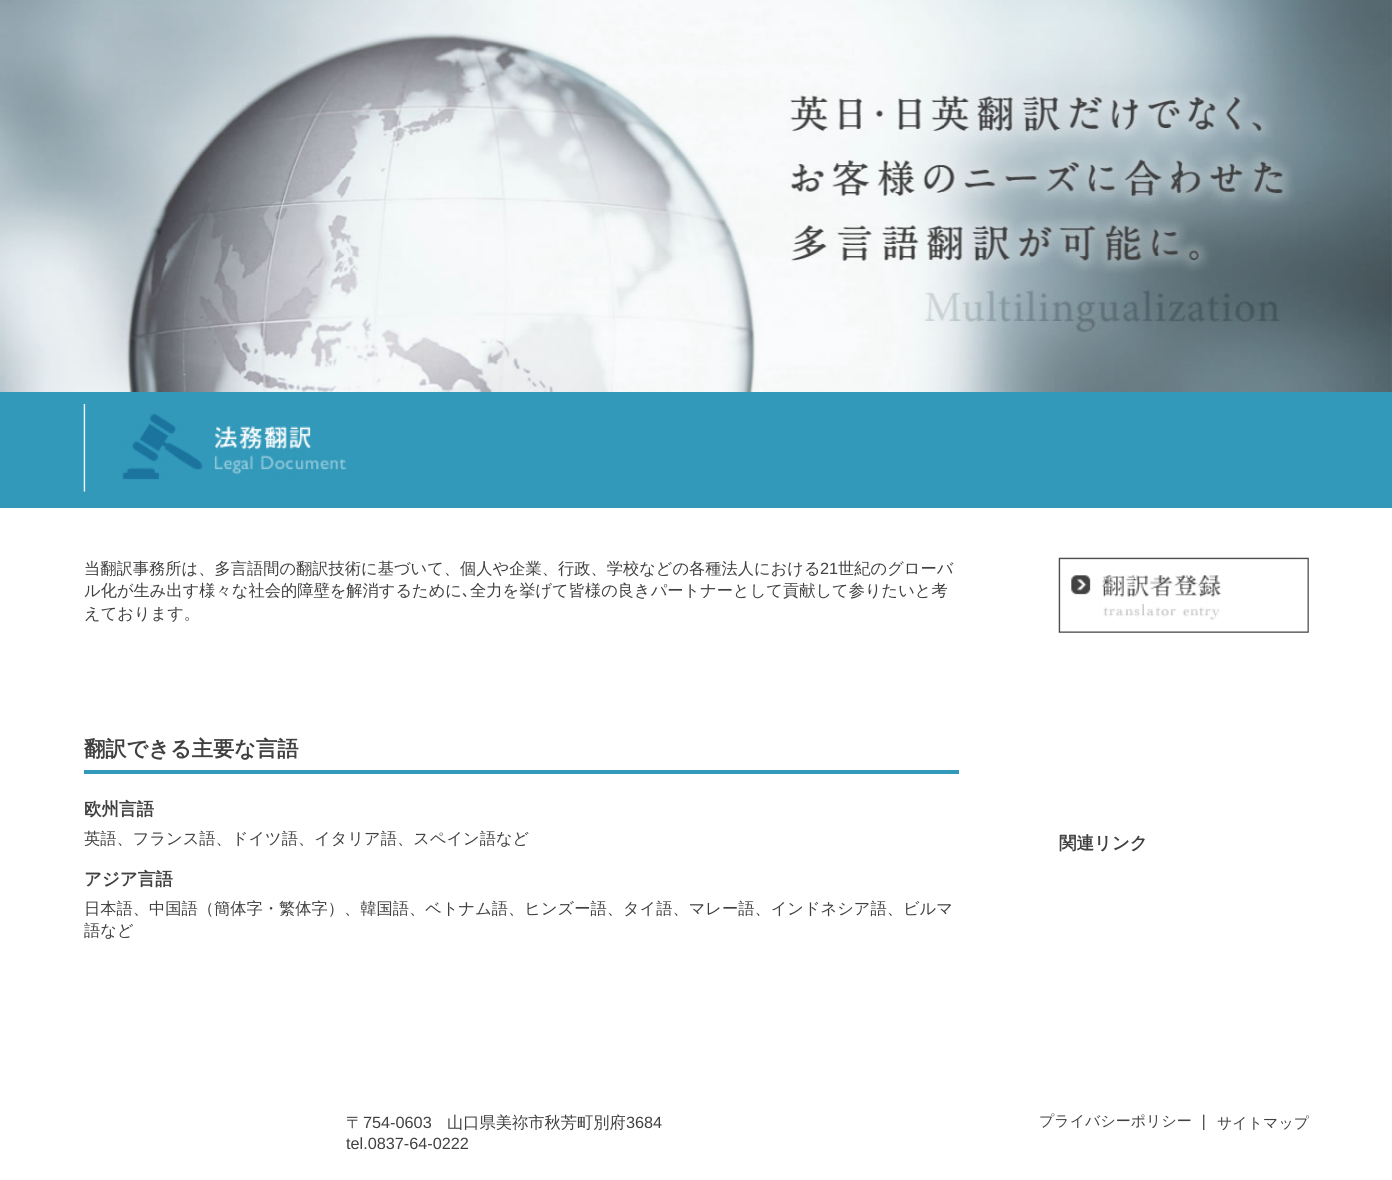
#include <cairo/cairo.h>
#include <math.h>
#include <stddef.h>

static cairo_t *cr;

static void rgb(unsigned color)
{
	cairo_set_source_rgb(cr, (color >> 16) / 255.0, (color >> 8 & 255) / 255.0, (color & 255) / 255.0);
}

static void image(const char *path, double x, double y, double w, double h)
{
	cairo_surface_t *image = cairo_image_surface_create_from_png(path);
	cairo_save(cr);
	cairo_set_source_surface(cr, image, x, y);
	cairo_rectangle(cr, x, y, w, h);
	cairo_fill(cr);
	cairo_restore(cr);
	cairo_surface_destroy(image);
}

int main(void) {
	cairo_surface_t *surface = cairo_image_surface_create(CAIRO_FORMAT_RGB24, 1392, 1180);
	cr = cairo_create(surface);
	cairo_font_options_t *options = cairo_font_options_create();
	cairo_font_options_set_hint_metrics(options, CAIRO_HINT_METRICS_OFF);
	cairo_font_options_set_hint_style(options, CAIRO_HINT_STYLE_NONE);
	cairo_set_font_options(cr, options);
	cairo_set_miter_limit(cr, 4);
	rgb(0xffffff);
	cairo_paint(cr);
	rgb(0x3299bb);
	cairo_rectangle(cr, 0, 391, 1392, 117);
	cairo_fill(cr);
	image("img/1.png", 0, 0, 1392, 392);
	image("img/2.png", 83, 404, 264, 88);
	cairo_rectangle(cr, 84, 770, 875, 4);
	cairo_fill(cr);
	image("img/3.png", 1058, 557, 251, 76);
	cairo_select_font_face(cr, "WenQuanYi Zen Hei Medium", CAIRO_FONT_SLANT_NORMAL, CAIRO_FONT_WEIGHT_NORMAL);
	cairo_set_font_size(cr, 16.25);
	rgb(0x404040);
	cairo_move_to(cr, 84, 574);
	cairo_show_text(cr, "当翻訳事務所は、多言語間の翻訳技術に基づいて、個人や企業、行政、学校などの各種法人における");
	cairo_select_font_face(cr, "Liberation Sans", CAIRO_FONT_SLANT_NORMAL, CAIRO_FONT_WEIGHT_NORMAL);
	cairo_move_to(cr, 820, 574);
	cairo_show_text(cr, "21");
	cairo_select_font_face(cr, "WenQuanYi Zen Hei Medium", CAIRO_FONT_SLANT_NORMAL, CAIRO_FONT_WEIGHT_NORMAL);
	cairo_move_to(cr, 838, 574);
	cairo_show_text(cr, "世紀のグローバ");
	cairo_move_to(cr, 84, 596);
	cairo_show_text(cr, "ル化が生み出す様々な社会的障壁を解消するために");
	cairo_select_font_face(cr, "IPAGothic", CAIRO_FONT_SLANT_NORMAL, CAIRO_FONT_WEIGHT_NORMAL);
	cairo_move_to(cr, 462, 596);
	cairo_show_text(cr, "､");
	cairo_select_font_face(cr, "WenQuanYi Zen Hei Medium", CAIRO_FONT_SLANT_NORMAL, CAIRO_FONT_WEIGHT_NORMAL);
	cairo_move_to(cr, 470, 596);
	cairo_show_text(cr, "全力を挙げて皆様の良きパートナーとして貢献して参りたいと考");
	cairo_move_to(cr, 84, 619);
	cairo_show_text(cr, "えております。");
	cairo_select_font_face(cr, "WenQuanYi Zen Hei", CAIRO_FONT_SLANT_NORMAL, CAIRO_FONT_WEIGHT_BOLD);
	cairo_set_font_size(cr, 21.25);
	cairo_move_to(cr, 84, 756);
	cairo_show_text(cr, "翻訳できる主要な言語");
	cairo_set_font_size(cr, 17.5);
	cairo_move_to(cr, 84, 815);
	cairo_show_text(cr, "欧州言語");
	cairo_select_font_face(cr, "WenQuanYi Zen Hei Medium", CAIRO_FONT_SLANT_NORMAL, CAIRO_FONT_WEIGHT_NORMAL);
	cairo_set_font_size(cr, 16.25);
	cairo_move_to(cr, 84, 844);
	cairo_show_text(cr, "英語、フランス語、ドイツ語、イタリア語、スペイン語など");
	cairo_select_font_face(cr, "WenQuanYi Zen Hei", CAIRO_FONT_SLANT_NORMAL, CAIRO_FONT_WEIGHT_BOLD);
	cairo_set_font_size(cr, 17.5);
	cairo_move_to(cr, 84, 885);
	cairo_show_text(cr, "アジア言語");
	cairo_select_font_face(cr, "WenQuanYi Zen Hei Medium", CAIRO_FONT_SLANT_NORMAL, CAIRO_FONT_WEIGHT_NORMAL);
	cairo_set_font_size(cr, 16.25);
	cairo_move_to(cr, 84, 914);
	cairo_show_text(cr, "日本語、中国語（簡体字・繁体字）、韓国語、ベトナム語、ヒンズー語、タイ語、マレー語、インドネシア語、ビルマ");
	cairo_move_to(cr, 84, 936);
	cairo_show_text(cr, "語など");
	cairo_select_font_face(cr, "WenQuanYi Zen Hei", CAIRO_FONT_SLANT_NORMAL, CAIRO_FONT_WEIGHT_BOLD);
	cairo_set_font_size(cr, 17.5);
	cairo_move_to(cr, 1059, 849);
	cairo_show_text(cr, "関連リンク");
	cairo_select_font_face(cr, "WenQuanYi Zen Hei Medium", CAIRO_FONT_SLANT_NORMAL, CAIRO_FONT_WEIGHT_NORMAL);
	cairo_set_font_size(cr, 16.25);
	cairo_move_to(cr, 346, 1128);
	cairo_show_text(cr, "〒");
	cairo_select_font_face(cr, "Liberation Sans", CAIRO_FONT_SLANT_NORMAL, CAIRO_FONT_WEIGHT_NORMAL);
	cairo_move_to(cr, 363, 1128);
	cairo_show_text(cr, "754-0603");
	cairo_select_font_face(cr, "WenQuanYi Zen Hei Medium", CAIRO_FONT_SLANT_NORMAL, CAIRO_FONT_WEIGHT_NORMAL);
	cairo_move_to(cr, 447, 1128);
	cairo_show_text(cr, "山口県美祢市秋芳町別府");
	cairo_select_font_face(cr, "Liberation Sans", CAIRO_FONT_SLANT_NORMAL, CAIRO_FONT_WEIGHT_NORMAL);
	cairo_move_to(cr, 626, 1128);
	cairo_show_text(cr, "3684");
	cairo_move_to(cr, 346, 1149);
	cairo_show_text(cr, "tel.0837-64-0222");
	cairo_select_font_face(cr, "WenQuanYi Zen Hei Medium", CAIRO_FONT_SLANT_NORMAL, CAIRO_FONT_WEIGHT_NORMAL);
	cairo_set_font_size(cr, 15);
	cairo_move_to(cr, 1039, 1126);
	cairo_show_text(cr, "プライバシーポリシー");
	cairo_set_font_size(cr, 16.25);
	cairo_move_to(cr, 1196, 1128);
	cairo_show_text(cr, "丨");
	cairo_set_font_size(cr, 15);
	cairo_move_to(cr, 1217, 1128);
	cairo_show_text(cr, "サイトマップ");
	cairo_surface_write_to_png(surface, "page.png");
	cairo_font_options_destroy(options);
	cairo_destroy(cr);
	cairo_surface_destroy(surface);
	return 0;
}
